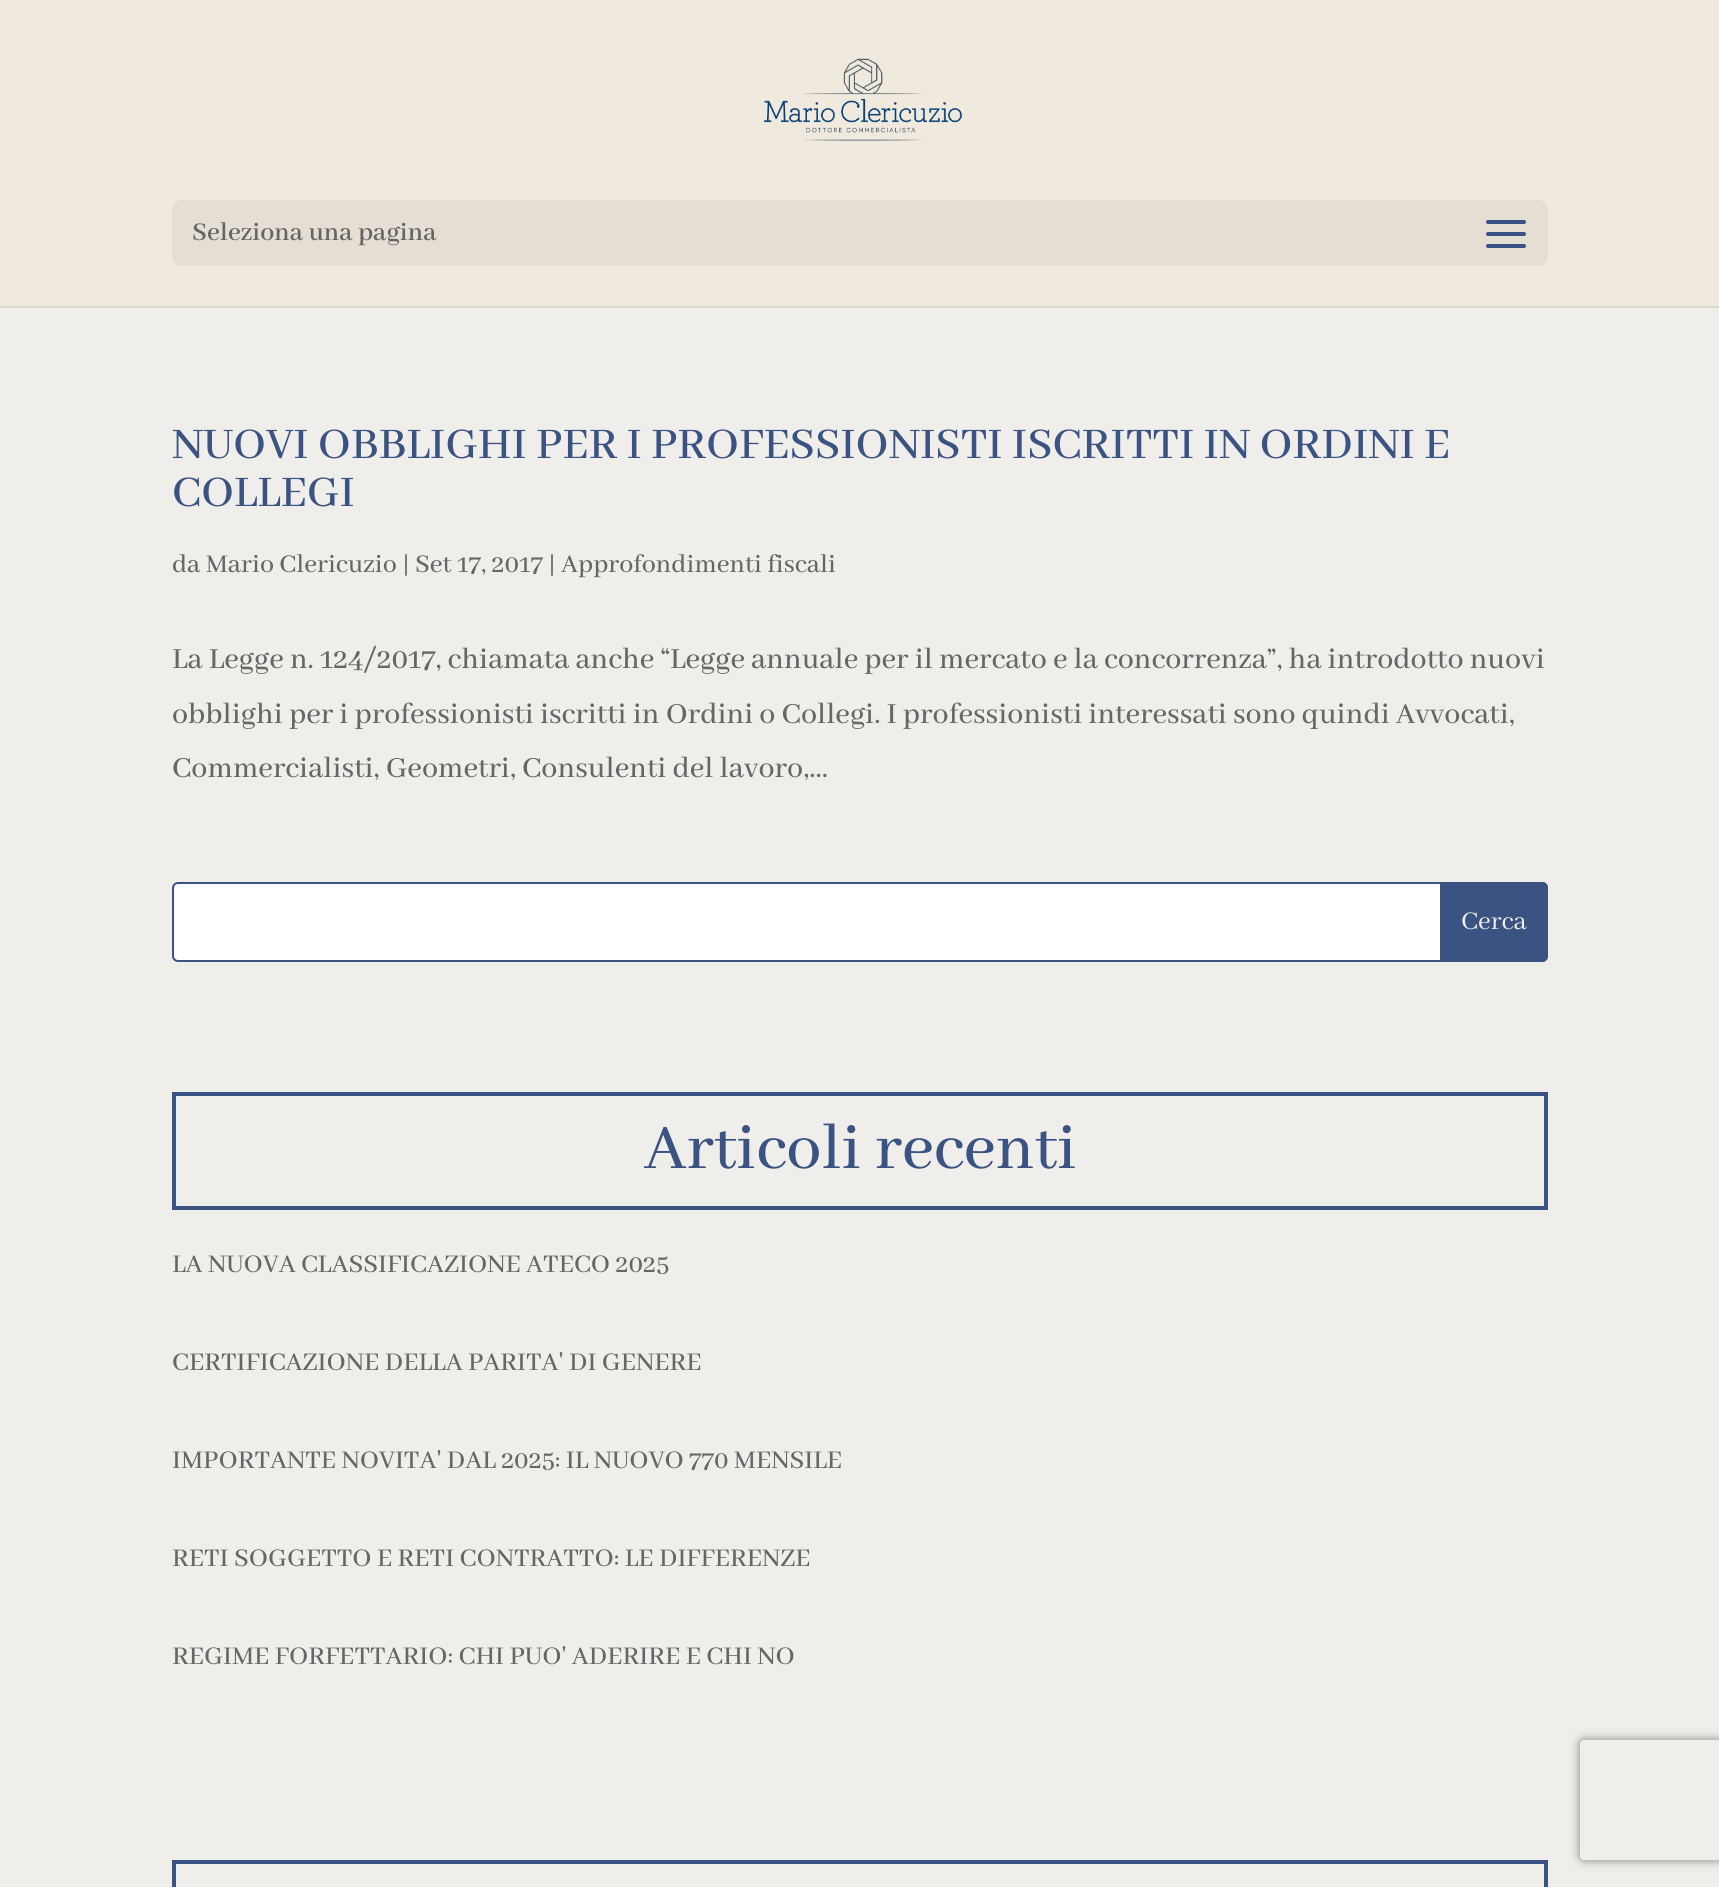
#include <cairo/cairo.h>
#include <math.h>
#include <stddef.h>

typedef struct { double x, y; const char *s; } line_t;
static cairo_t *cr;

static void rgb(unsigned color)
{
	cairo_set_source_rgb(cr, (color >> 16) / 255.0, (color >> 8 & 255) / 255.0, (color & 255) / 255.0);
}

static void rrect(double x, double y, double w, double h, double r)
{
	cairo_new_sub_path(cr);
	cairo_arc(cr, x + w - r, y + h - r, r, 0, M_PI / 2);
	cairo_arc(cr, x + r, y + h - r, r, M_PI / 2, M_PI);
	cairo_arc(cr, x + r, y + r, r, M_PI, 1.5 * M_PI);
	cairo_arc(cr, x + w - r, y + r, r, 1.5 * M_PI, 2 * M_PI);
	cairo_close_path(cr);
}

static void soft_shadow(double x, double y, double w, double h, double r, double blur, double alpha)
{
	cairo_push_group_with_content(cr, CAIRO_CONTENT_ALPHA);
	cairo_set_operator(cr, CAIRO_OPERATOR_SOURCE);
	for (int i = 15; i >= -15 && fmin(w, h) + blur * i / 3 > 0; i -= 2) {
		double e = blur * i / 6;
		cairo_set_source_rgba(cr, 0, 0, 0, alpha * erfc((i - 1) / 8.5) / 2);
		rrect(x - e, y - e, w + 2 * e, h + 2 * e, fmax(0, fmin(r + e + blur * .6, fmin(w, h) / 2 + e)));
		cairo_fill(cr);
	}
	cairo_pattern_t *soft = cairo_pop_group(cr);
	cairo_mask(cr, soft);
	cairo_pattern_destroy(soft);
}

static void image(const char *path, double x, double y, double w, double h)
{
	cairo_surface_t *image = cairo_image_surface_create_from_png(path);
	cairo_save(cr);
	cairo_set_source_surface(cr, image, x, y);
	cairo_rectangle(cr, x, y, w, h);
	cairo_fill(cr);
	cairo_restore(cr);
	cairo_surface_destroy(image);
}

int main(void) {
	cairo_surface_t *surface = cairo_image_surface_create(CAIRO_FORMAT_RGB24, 1719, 1887);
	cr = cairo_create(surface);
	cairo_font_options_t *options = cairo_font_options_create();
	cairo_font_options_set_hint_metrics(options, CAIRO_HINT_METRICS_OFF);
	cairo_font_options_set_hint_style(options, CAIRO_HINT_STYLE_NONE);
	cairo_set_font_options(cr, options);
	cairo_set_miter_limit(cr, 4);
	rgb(0xefeeea);
	cairo_paint(cr);
	rgb(0xd7d6d3);
	cairo_rectangle(cr, 0, 306, 1719, 2);
	cairo_fill(cr);
	rgb(0xf0eade);
	cairo_rectangle(cr, 0, 0, 1719, 306);
	cairo_fill(cr);
	image("img/1.png", 764, 58, 198, 83);
	rgb(0xe4ded3);
	rrect(172, 200, 1376, 66, 10);
	cairo_fill(cr);
	image("img/2.png", 1486, 220, 40, 28);
	rgb(0xffffff);
	rrect(173, 883, 1374, 78, 5);
	cairo_fill_preserve(cr);
	rgb(0x3a5382);
	cairo_stroke(cr);
	cairo_new_path(cr);
	cairo_move_to(cr, 1441, 883);
	cairo_line_to(cr, 1542, 883);
	cairo_curve_to(cr, 1545, 883, 1547, 885, 1547, 888);
	cairo_line_to(cr, 1547, 956);
	cairo_curve_to(cr, 1547, 959, 1545, 961, 1542, 961);
	cairo_line_to(cr, 1441, 961);
	cairo_close_path(cr);
	cairo_fill_preserve(cr);
	cairo_stroke(cr);
	cairo_rectangle(cr, 174, 1094, 1372, 114);
	cairo_set_line_width(cr, 4);
	cairo_stroke(cr);
	cairo_rectangle(cr, 174, 1862, 1372, 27);
	cairo_stroke(cr);
	cairo_save(cr);
	cairo_set_fill_rule(cr, CAIRO_FILL_RULE_EVEN_ODD);
	cairo_new_path(cr);
	cairo_move_to(cr, 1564, 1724);
	cairo_line_to(cr, 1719, 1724);
	cairo_line_to(cr, 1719, 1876);
	cairo_line_to(cr, 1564, 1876);
	cairo_close_path(cr);
	cairo_move_to(cr, 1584, 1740);
	cairo_line_to(cr, 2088, 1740);
	cairo_curve_to(cr, 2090, 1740, 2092, 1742, 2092, 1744);
	cairo_line_to(cr, 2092, 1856);
	cairo_curve_to(cr, 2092, 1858, 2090, 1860, 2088, 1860);
	cairo_line_to(cr, 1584, 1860);
	cairo_curve_to(cr, 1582, 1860, 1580, 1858, 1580, 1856);
	cairo_line_to(cr, 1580, 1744);
	cairo_curve_to(cr, 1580, 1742, 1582, 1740, 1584, 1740);
	cairo_close_path(cr);
	cairo_clip(cr);
	rgb(0x808080);
	soft_shadow(1580, 1740, 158, 120, 4, 5, 1);
	cairo_restore(cr);
	cairo_select_font_face(cr, "Abhaya Libre SemiBold SemiBold", CAIRO_FONT_SLANT_NORMAL, CAIRO_FONT_WEIGHT_NORMAL);
	cairo_set_font_size(cr, 28);
	rgb(0x666666);
	cairo_move_to(cr, 192, 240);
	cairo_show_text(cr, "Seleziona una pagina");
	cairo_select_font_face(cr, "Abhaya Libre Medium Medium", CAIRO_FONT_SLANT_NORMAL, CAIRO_FONT_WEIGHT_NORMAL);
	cairo_set_font_size(cr, 48);
	rgb(0x3a5382);
	cairo_move_to(cr, 172, 458);
	cairo_show_text(cr, "NUOVI OBBLIGHI PER I PROFESSIONISTI ISCRITTI IN ORDINI E");
	cairo_move_to(cr, 172, 506);
	cairo_show_text(cr, "COLLEGI");
	cairo_set_font_size(cr, 28);
	rgb(0x666666);
	cairo_move_to(cr, 172, 572);
	cairo_show_text(cr, "da Mario Clericuzio | Set 17, 2017 | Approfondimenti fiscali");
	cairo_set_font_size(cr, 32);
	{
		static const line_t items[] = {
			{172, 668, "La Legge n. 124/2017, chiamata anche “Legge annuale per il mercato e la concorrenza”, ha introdotto nuovi"},
			{172, 723, "obblighi per i professionisti iscritti in Ordini o Collegi. I professionisti interessati sono quindi Avvocati,"},
			{172, 777, "Commercialisti, Geometri, Consulenti del lavoro,..."},
		};
		for (size_t i = 0; i < sizeof items / sizeof *items; i++) {
			cairo_move_to(cr, items[i].x, items[i].y);
			cairo_show_text(cr, items[i].s);
		}
	}
	cairo_select_font_face(cr, "Abhaya Libre", CAIRO_FONT_SLANT_NORMAL, CAIRO_FONT_WEIGHT_NORMAL);
	cairo_set_font_size(cr, 28);
	rgb(0xefeeea);
	cairo_move_to(cr, 1461, 929);
	cairo_show_text(cr, "Cerca");
	cairo_select_font_face(cr, "Abhaya Libre Medium Medium", CAIRO_FONT_SLANT_NORMAL, CAIRO_FONT_WEIGHT_NORMAL);
	cairo_set_font_size(cr, 70);
	rgb(0x3a5382);
	cairo_move_to(cr, 644, 1168);
	cairo_show_text(cr, "Articoli recenti");
	cairo_set_font_size(cr, 28);
	rgb(0x666666);
	{
		static const line_t items[] = {
			{172, 1272, "LA NUOVA CLASSIFICAZIONE ATECO 2025"},
			{172, 1370, "CERTIFICAZIONE DELLA PARITA' DI GENERE"},
			{172, 1468, "IMPORTANTE NOVITA' DAL 2025: IL NUOVO 770 MENSILE"},
			{172, 1566, "RETI SOGGETTO E RETI CONTRATTO: LE DIFFERENZE"},
			{172, 1664, "REGIME FORFETTARIO: CHI PUO' ADERIRE E CHI NO"},
		};
		for (size_t i = 0; i < sizeof items / sizeof *items; i++) {
			cairo_move_to(cr, items[i].x, items[i].y);
			cairo_show_text(cr, items[i].s);
		}
	}
	cairo_surface_write_to_png(surface, "page.png");
	cairo_font_options_destroy(options);
	cairo_destroy(cr);
	cairo_surface_destroy(surface);
	return 0;
}
